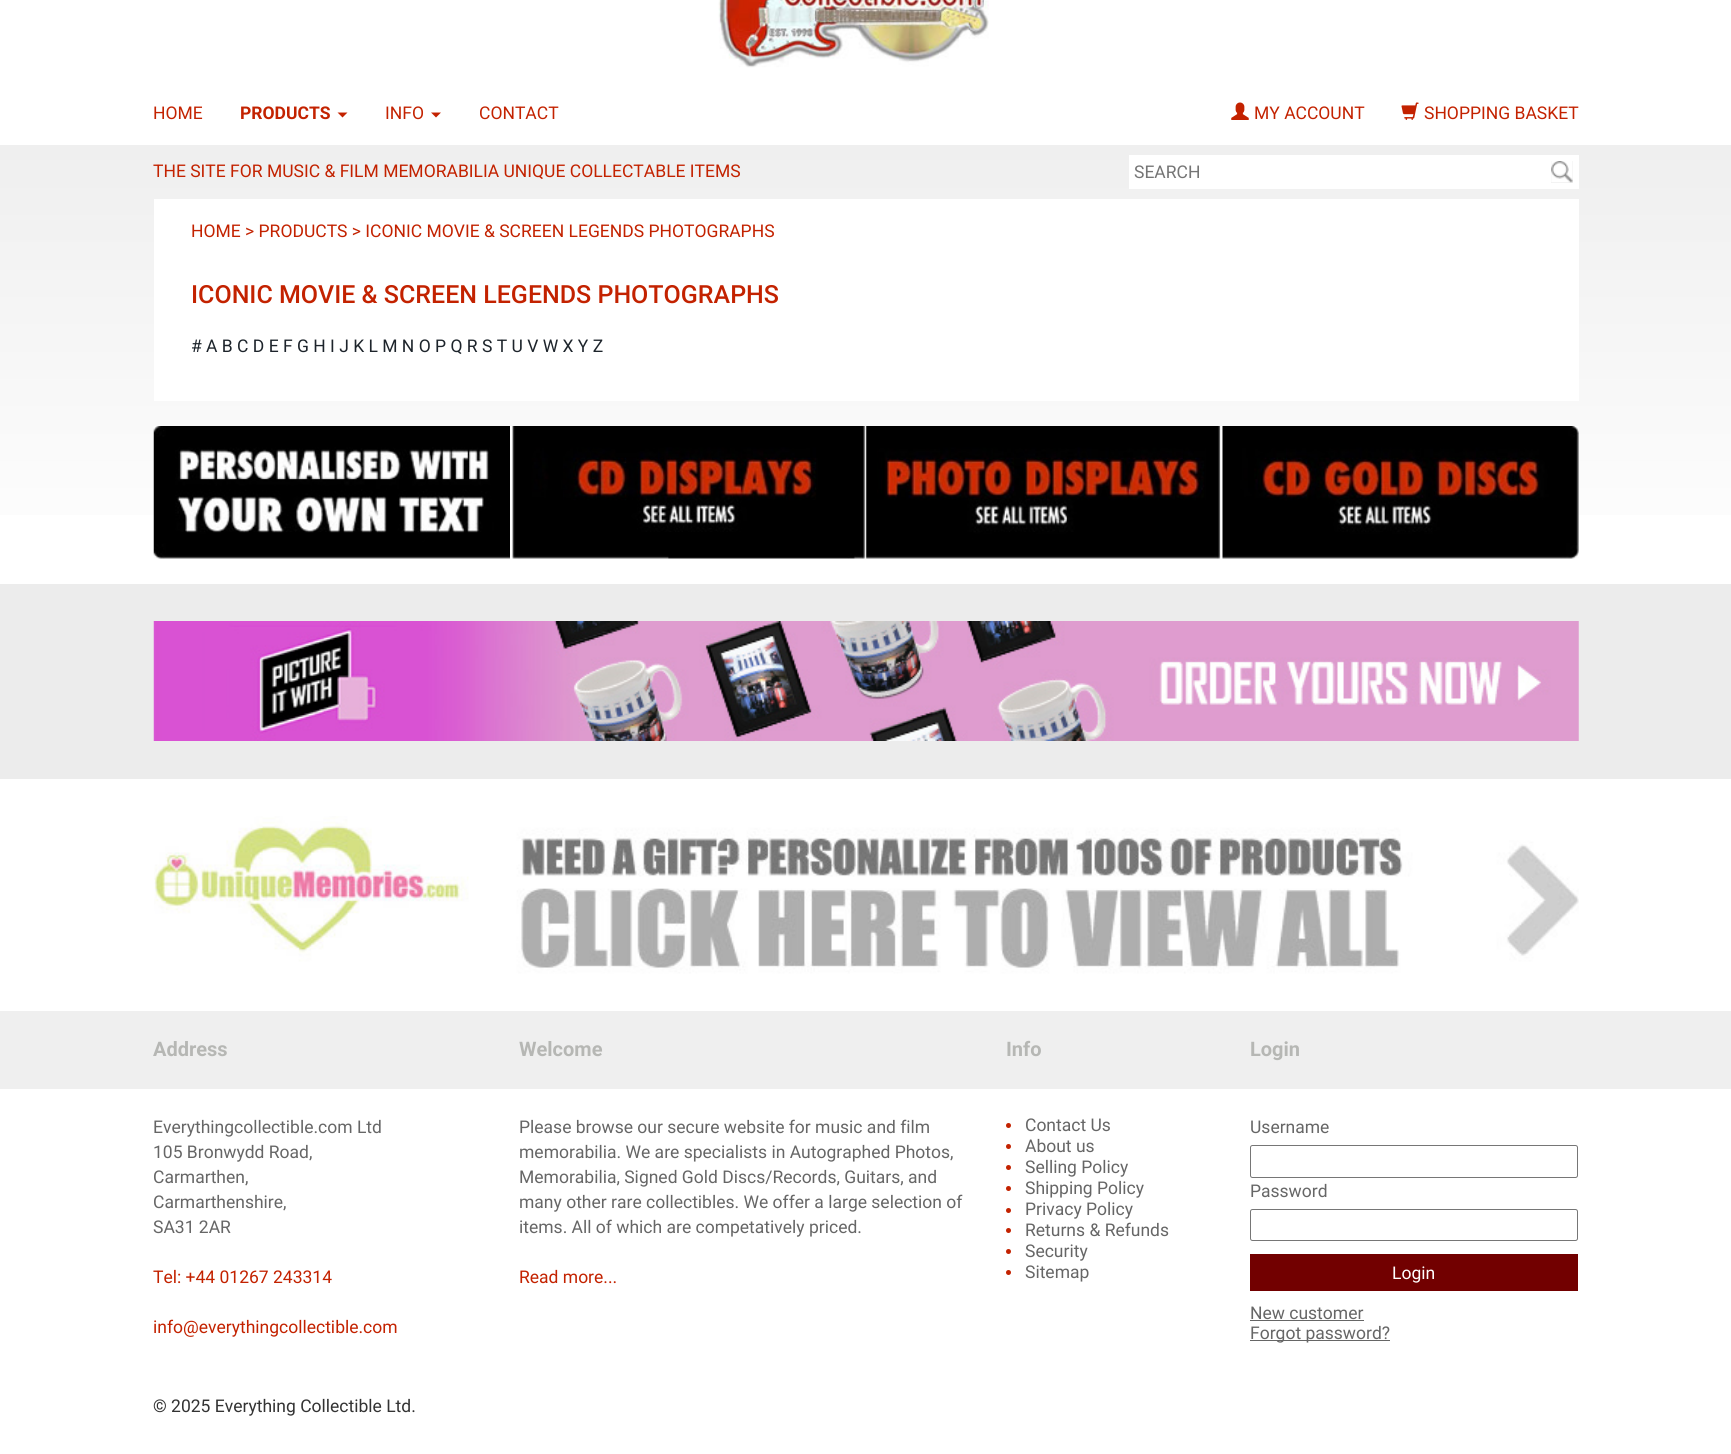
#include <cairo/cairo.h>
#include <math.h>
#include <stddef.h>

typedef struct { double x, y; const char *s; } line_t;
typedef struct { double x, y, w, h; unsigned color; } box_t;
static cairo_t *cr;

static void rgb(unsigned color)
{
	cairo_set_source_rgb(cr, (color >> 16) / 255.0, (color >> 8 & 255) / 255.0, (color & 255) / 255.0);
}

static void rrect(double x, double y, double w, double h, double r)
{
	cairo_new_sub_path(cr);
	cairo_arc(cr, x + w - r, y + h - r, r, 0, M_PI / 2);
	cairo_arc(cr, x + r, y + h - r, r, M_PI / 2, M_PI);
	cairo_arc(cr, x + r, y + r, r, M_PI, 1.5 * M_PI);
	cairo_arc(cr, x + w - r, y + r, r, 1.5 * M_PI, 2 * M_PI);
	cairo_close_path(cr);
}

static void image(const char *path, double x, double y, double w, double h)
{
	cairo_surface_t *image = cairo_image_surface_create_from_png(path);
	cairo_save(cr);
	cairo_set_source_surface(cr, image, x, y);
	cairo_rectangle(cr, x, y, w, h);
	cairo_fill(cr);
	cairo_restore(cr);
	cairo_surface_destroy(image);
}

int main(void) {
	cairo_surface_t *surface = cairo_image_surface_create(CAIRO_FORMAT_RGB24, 1731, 1454);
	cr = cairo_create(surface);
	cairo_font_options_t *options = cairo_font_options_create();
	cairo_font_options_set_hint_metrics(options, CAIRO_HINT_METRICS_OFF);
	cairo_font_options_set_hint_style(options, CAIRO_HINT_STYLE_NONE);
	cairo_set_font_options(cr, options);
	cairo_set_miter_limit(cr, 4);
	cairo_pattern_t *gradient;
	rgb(0xffffff);
	cairo_paint(cr);
	image("img/1.png", 718, 0, 271, 68);
	rgb(0xc32200);
	cairo_new_path(cr);
	cairo_move_to(cr, 337.5, 112.5);
	cairo_line_to(cr, 347.5, 112.5);
	cairo_line_to(cr, 342.5, 117.5);
	cairo_close_path(cr);
	cairo_fill(cr);
	cairo_new_path(cr);
	cairo_move_to(cr, 431, 112.5);
	cairo_line_to(cr, 441, 112.5);
	cairo_line_to(cr, 436, 117.5);
	cairo_close_path(cr);
	cairo_fill(cr);
	image("img/2.png", 1231, 102, 18, 18);
	image("img/3.png", 1401, 102, 18, 18);
	gradient = cairo_pattern_create_linear(866, 145, 866, 584);
	cairo_pattern_add_color_stop_rgba(gradient, 0, 0.937, 0.937, 0.937, 1);
	cairo_pattern_add_color_stop_rgba(gradient, 1, 1, 1, 1, 1);
	cairo_set_source(cr, gradient);
	cairo_pattern_destroy(gradient);
	cairo_rectangle(cr, 0, 145, 1731, 370);
	cairo_fill(cr);
	rgb(0xffffff);
	cairo_rectangle(cr, 1129, 155, 450, 34);
	cairo_fill(cr);
	rgb(0xefefef);
	cairo_rectangle(cr, 1551, 161, 22, 22);
	cairo_fill(cr);
	image("img/4.png", 1551, 161, 22, 22);
	rgb(0xffffff);
	cairo_rectangle(cr, 154, 199, 1425, 202);
	cairo_fill(cr);
	image("img/5.png", 153, 426, 357, 133);
	image("img/6.png", 510, 426, 356, 133);
	image("img/7.png", 866, 426, 356, 133);
	image("img/8.png", 1222, 426, 357, 133);
	rgb(0xececec);
	cairo_rectangle(cr, 0, 584, 1731, 195);
	cairo_fill(cr);
	image("img/9.png", 153, 621, 1426, 120);
	image("img/10.png", 154, 816, 1425, 158);
	rgb(0xefefef);
	cairo_rectangle(cr, 0, 1011, 1731, 78);
	cairo_fill(cr);
	rgb(0xc32200);
	cairo_arc(cr, 1008.5, 1125.5, 2.5, 0, 2 * M_PI);
	cairo_fill(cr);
	cairo_arc(cr, 1008.5, 1146.5, 2.5, 0, 2 * M_PI);
	cairo_fill(cr);
	cairo_arc(cr, 1008.5, 1167.5, 2.5, 0, 2 * M_PI);
	cairo_fill(cr);
	cairo_arc(cr, 1008.5, 1188.5, 2.5, 0, 2 * M_PI);
	cairo_fill(cr);
	cairo_arc(cr, 1008.5, 1210.5, 2.5, 0, 2 * M_PI);
	cairo_fill(cr);
	cairo_arc(cr, 1008.5, 1230.5, 2.5, 0, 2 * M_PI);
	cairo_fill(cr);
	cairo_arc(cr, 1008.5, 1251.5, 2.5, 0, 2 * M_PI);
	cairo_fill(cr);
	cairo_arc(cr, 1008.5, 1272.5, 2.5, 0, 2 * M_PI);
	cairo_fill(cr);
	rrect(1250.5, 1145.5, 327, 32, 2);
	rgb(0x767676);
	cairo_set_line_width(cr, 1);
	cairo_stroke(cr);
	rrect(1250.5, 1209.5, 327, 31, 2);
	cairo_stroke(cr);
	{
		static const box_t items[] = {
			{1250, 1254, 328, 37, 0x720000},
			{1250, 1320, 114, 1, 0x666666},
			{1250, 1340, 140, 1, 0x666666},
		};
		for (size_t i = 0; i < sizeof items / sizeof *items; i++) {
			rgb(items[i].color);
			cairo_rectangle(cr, items[i].x, items[i].y, items[i].w, items[i].h);
			cairo_fill(cr);
		}
	}
	cairo_select_font_face(cr, "Roboto", CAIRO_FONT_SLANT_NORMAL, CAIRO_FONT_WEIGHT_NORMAL);
	cairo_set_font_size(cr, 17.5);
	rgb(0xc32200);
	cairo_move_to(cr, 153, 119);
	cairo_show_text(cr, "HOME");
	cairo_select_font_face(cr, "Roboto", CAIRO_FONT_SLANT_NORMAL, CAIRO_FONT_WEIGHT_BOLD);
	cairo_move_to(cr, 240, 119);
	cairo_show_text(cr, "PRODUCTS");
	cairo_select_font_face(cr, "Roboto", CAIRO_FONT_SLANT_NORMAL, CAIRO_FONT_WEIGHT_NORMAL);
	{
		static const line_t items[] = {
			{385, 119, "INFO"},
			{479, 119, "CONTACT"},
			{1254, 119, "MY ACCOUNT"},
			{1424, 119, "SHOPPING BASKET"},
			{153, 177, "THE SITE FOR MUSIC & FILM MEMORABILIA UNIQUE COLLECTABLE ITEMS"},
		};
		for (size_t i = 0; i < sizeof items / sizeof *items; i++) {
			cairo_move_to(cr, items[i].x, items[i].y);
			cairo_show_text(cr, items[i].s);
		}
	}
	rgb(0x757575);
	cairo_move_to(cr, 1134, 178);
	cairo_show_text(cr, "SEARCH");
	rgb(0xc32200);
	cairo_move_to(cr, 191, 237);
	cairo_show_text(cr, "HOME > PRODUCTS > ICONIC MOVIE & SCREEN LEGENDS PHOTOGRAPHS");
	cairo_select_font_face(cr, "Roboto Medium", CAIRO_FONT_SLANT_NORMAL, CAIRO_FONT_WEIGHT_NORMAL);
	cairo_set_font_size(cr, 25);
	cairo_move_to(cr, 191, 303);
	cairo_show_text(cr, "ICONIC MOVIE & SCREEN LEGENDS PHOTOGRAPHS");
	cairo_select_font_face(cr, "Roboto", CAIRO_FONT_SLANT_NORMAL, CAIRO_FONT_WEIGHT_NORMAL);
	cairo_set_font_size(cr, 17.5);
	rgb(0x1d242b);
	cairo_move_to(cr, 191, 352);
	cairo_show_text(cr, "# A B C D E F G H I J K L M N O P Q R S T U V W X Y Z");
	cairo_select_font_face(cr, "Roboto", CAIRO_FONT_SLANT_NORMAL, CAIRO_FONT_WEIGHT_BOLD);
	cairo_set_font_size(cr, 20);
	rgb(0xb6b7b4);
	{
		static const line_t items[] = {
			{153, 1056, "Address"},
			{519, 1056, "Welcome"},
			{1006, 1056, "Info"},
			{1250, 1056, "Login"},
		};
		for (size_t i = 0; i < sizeof items / sizeof *items; i++) {
			cairo_move_to(cr, items[i].x, items[i].y);
			cairo_show_text(cr, items[i].s);
		}
	}
	cairo_select_font_face(cr, "Roboto", CAIRO_FONT_SLANT_NORMAL, CAIRO_FONT_WEIGHT_NORMAL);
	cairo_set_font_size(cr, 17.5);
	rgb(0x666666);
	{
		static const line_t items[] = {
			{153, 1133, "Everythingcollectible.com Ltd"},
			{153, 1158, "105 Bronwydd Road,"},
			{153, 1183, "Carmarthen,"},
			{153, 1208, "Carmarthenshire,"},
			{153, 1233, "SA31 2AR"},
		};
		for (size_t i = 0; i < sizeof items / sizeof *items; i++) {
			cairo_move_to(cr, items[i].x, items[i].y);
			cairo_show_text(cr, items[i].s);
		}
	}
	rgb(0xc32200);
	cairo_move_to(cr, 153, 1283);
	cairo_show_text(cr, "Tel: +44 01267 243314");
	cairo_move_to(cr, 153, 1333);
	cairo_show_text(cr, "info@everythingcollectible.com");
	rgb(0x666666);
	{
		static const line_t items[] = {
			{519, 1133, "Please browse our secure website for music and film"},
			{519, 1158, "memorabilia. We are specialists in Autographed Photos,"},
			{519, 1183, "Memorabilia, Signed Gold Discs/Records, Guitars, and"},
			{519, 1208, "many other rare collectibles. We offer a large selection of"},
			{519, 1233, "items. All of which are competatively priced."},
		};
		for (size_t i = 0; i < sizeof items / sizeof *items; i++) {
			cairo_move_to(cr, items[i].x, items[i].y);
			cairo_show_text(cr, items[i].s);
		}
	}
	rgb(0xc32200);
	cairo_move_to(cr, 519, 1283);
	cairo_show_text(cr, "Read more...");
	rgb(0x666666);
	{
		static const line_t items[] = {
			{1025, 1131, "Contact Us"},
			{1025, 1152, "About us"},
			{1025, 1173, "Selling Policy"},
			{1025, 1194, "Shipping Policy"},
			{1025, 1215, "Privacy Policy"},
			{1025, 1236, "Returns & Refunds"},
			{1025, 1257, "Security"},
			{1025, 1278, "Sitemap"},
			{1250, 1133, "Username"},
			{1250, 1197, "Password"},
		};
		for (size_t i = 0; i < sizeof items / sizeof *items; i++) {
			cairo_move_to(cr, items[i].x, items[i].y);
			cairo_show_text(cr, items[i].s);
		}
	}
	rgb(0xffffff);
	cairo_move_to(cr, 1392, 1279);
	cairo_show_text(cr, "Login");
	rgb(0x666666);
	cairo_move_to(cr, 1250, 1319);
	cairo_show_text(cr, "New customer");
	cairo_move_to(cr, 1250, 1339);
	cairo_show_text(cr, "Forgot password?");
	rgb(0x333333);
	cairo_move_to(cr, 153, 1412);
	cairo_show_text(cr, "© 2025 Everything Collectible Ltd.");
	cairo_surface_write_to_png(surface, "page.png");
	cairo_font_options_destroy(options);
	cairo_destroy(cr);
	cairo_surface_destroy(surface);
	return 0;
}
